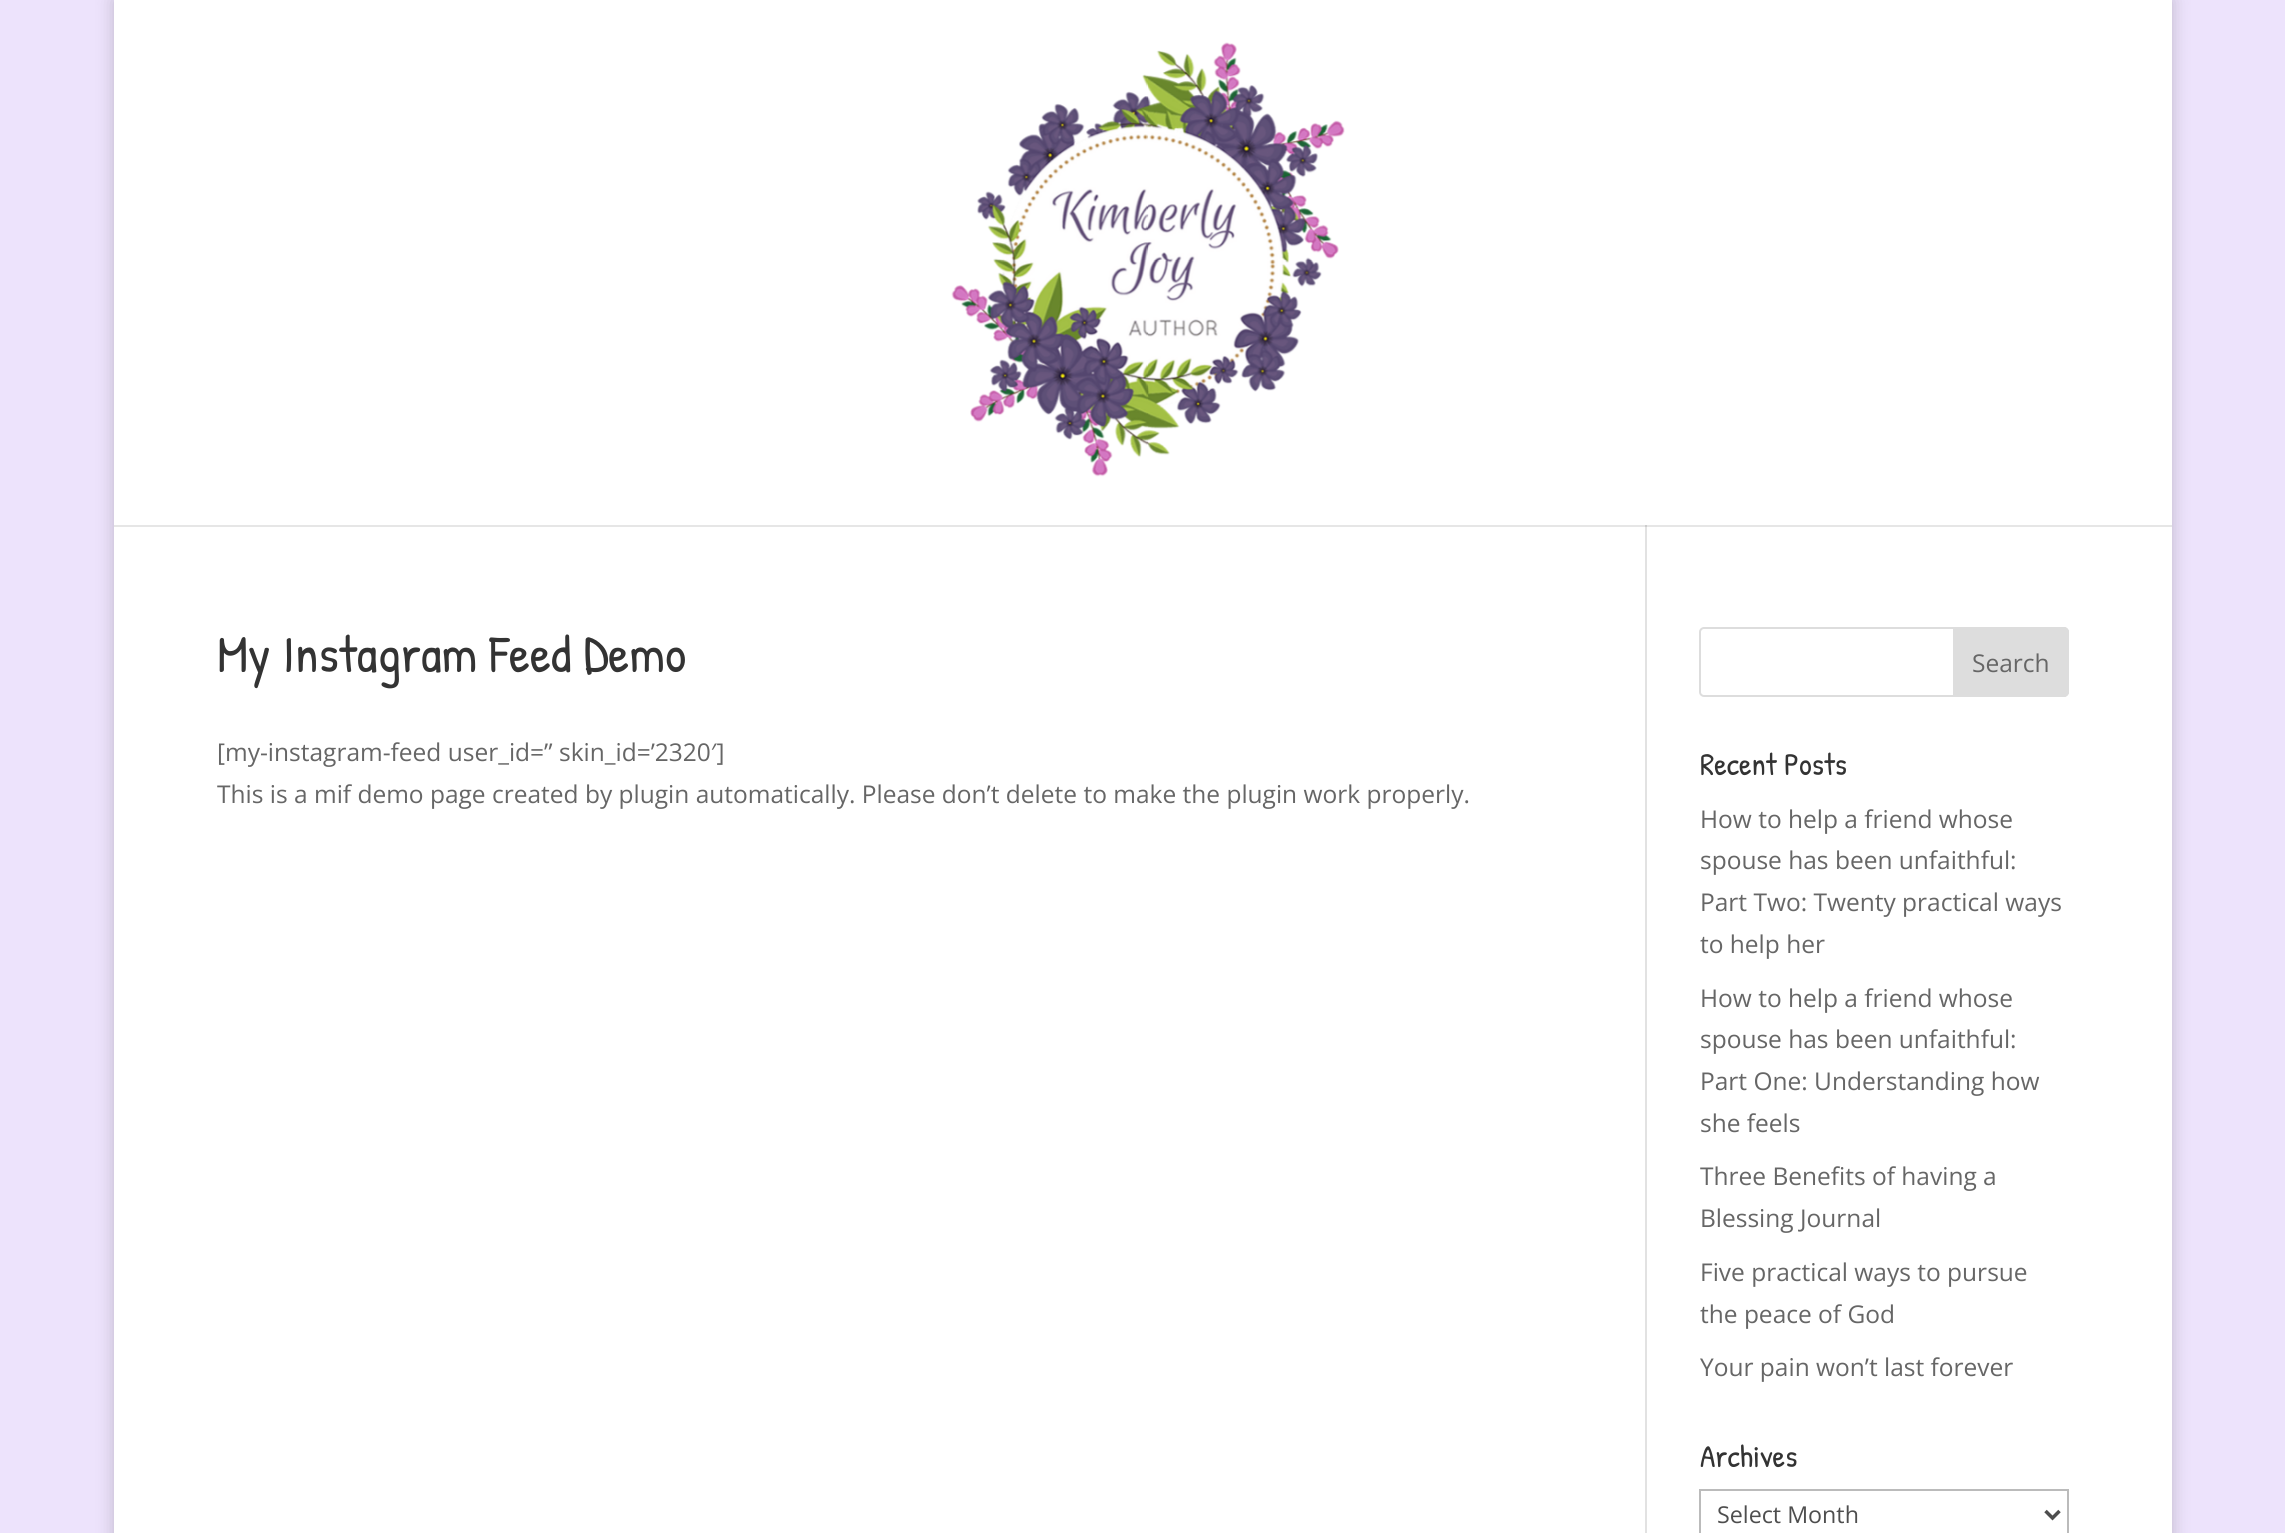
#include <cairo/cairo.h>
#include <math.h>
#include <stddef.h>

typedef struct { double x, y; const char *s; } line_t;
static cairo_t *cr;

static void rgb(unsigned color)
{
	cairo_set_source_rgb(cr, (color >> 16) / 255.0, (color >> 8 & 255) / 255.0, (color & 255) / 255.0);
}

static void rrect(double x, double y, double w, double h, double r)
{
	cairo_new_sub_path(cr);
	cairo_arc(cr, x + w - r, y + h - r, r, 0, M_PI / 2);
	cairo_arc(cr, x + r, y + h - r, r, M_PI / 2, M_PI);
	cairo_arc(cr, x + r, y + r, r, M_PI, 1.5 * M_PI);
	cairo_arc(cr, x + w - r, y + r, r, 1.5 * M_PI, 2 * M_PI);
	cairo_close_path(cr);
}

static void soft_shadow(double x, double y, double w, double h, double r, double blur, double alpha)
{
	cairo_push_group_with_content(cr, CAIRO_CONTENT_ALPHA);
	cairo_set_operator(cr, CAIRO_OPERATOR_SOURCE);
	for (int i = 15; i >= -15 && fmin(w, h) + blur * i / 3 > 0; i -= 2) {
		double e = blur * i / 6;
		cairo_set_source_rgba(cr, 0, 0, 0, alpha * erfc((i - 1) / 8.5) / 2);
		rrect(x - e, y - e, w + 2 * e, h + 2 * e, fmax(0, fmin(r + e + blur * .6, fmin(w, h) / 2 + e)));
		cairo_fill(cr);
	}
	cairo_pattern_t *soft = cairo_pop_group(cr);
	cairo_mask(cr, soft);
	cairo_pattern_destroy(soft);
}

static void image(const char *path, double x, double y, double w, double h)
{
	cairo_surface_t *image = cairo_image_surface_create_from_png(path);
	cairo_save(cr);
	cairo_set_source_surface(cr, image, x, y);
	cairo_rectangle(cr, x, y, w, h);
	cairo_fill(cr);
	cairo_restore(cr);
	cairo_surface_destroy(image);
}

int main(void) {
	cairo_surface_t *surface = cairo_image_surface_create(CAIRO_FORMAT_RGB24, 2285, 1533);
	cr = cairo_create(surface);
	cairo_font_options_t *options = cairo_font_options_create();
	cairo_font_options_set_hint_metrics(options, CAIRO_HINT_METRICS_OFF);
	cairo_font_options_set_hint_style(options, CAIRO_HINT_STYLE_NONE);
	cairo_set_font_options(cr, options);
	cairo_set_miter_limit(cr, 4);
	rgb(0xede3fc);
	cairo_paint(cr);
	rgb(0x000000);
	soft_shadow(114, 0, 2058, 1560, 0, 9, 0.2);
	rgb(0xffffff);
	cairo_rectangle(cr, 114, 0, 2058, 1533);
	cairo_fill(cr);
	rgb(0xe2e2e2);
	cairo_rectangle(cr, 1645, 525, 2, 1008);
	cairo_fill(cr);
	cairo_set_source_rgba(cr, 0, 0, 0, 0.1);
	cairo_new_path(cr);
	cairo_move_to(cr, 114, 525);
	cairo_line_to(cr, 114, 527);
	cairo_line_to(cr, 2172, 527);
	cairo_line_to(cr, 2172, 2);
	cairo_line_to(cr, 2172, 525);
	cairo_close_path(cr);
	cairo_fill(cr);
	image("img/1.png", 951, 42, 394, 435);
	rrect(1700, 628, 368, 68, 4);
	rgb(0xdddddd);
	cairo_stroke(cr);
	cairo_new_path(cr);
	cairo_move_to(cr, 1954, 628);
	cairo_line_to(cr, 2064, 628);
	cairo_curve_to(cr, 2066, 628, 2068, 630, 2068, 632);
	cairo_line_to(cr, 2068, 692);
	cairo_curve_to(cr, 2068, 694, 2066, 696, 2064, 696);
	cairo_line_to(cr, 1954, 696);
	cairo_close_path(cr);
	cairo_fill_preserve(cr);
	cairo_stroke(cr);
	cairo_rectangle(cr, 1700, 1490, 368, 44);
	rgb(0xbbbbbb);
	cairo_stroke(cr);
	cairo_new_path(cr);
	cairo_move_to(cr, 2045.5, 1511);
	cairo_line_to(cr, 2052.5, 1518);
	cairo_line_to(cr, 2059.5, 1511);
	rgb(0x4e4e4e);
	cairo_set_line_width(cr, 3.5);
	cairo_stroke(cr);
	cairo_select_font_face(cr, "Patrick Hand", CAIRO_FONT_SLANT_NORMAL, CAIRO_FONT_WEIGHT_NORMAL);
	cairo_set_font_size(cr, 52.5);
	rgb(0x333333);
	cairo_move_to(cr, 217, 672);
	cairo_show_text(cr, "My Instagram Feed Demo");
	cairo_select_font_face(cr, "Open Sans", CAIRO_FONT_SLANT_NORMAL, CAIRO_FONT_WEIGHT_NORMAL);
	cairo_set_font_size(cr, 24.5);
	rgb(0x666666);
	{
		static const line_t items[] = {
			{217, 761, "[my-instagram-feed user_id=” skin_id=’2320′]"},
			{217, 803, "This is a mif demo page created by plugin automatically. Please don’t delete to make the plugin work properly."},
			{1972, 672, "Search"},
		};
		for (size_t i = 0; i < sizeof items / sizeof *items; i++) {
			cairo_move_to(cr, items[i].x, items[i].y);
			cairo_show_text(cr, items[i].s);
		}
	}
	cairo_select_font_face(cr, "Patrick Hand", CAIRO_FONT_SLANT_NORMAL, CAIRO_FONT_WEIGHT_NORMAL);
	cairo_set_font_size(cr, 31.5);
	rgb(0x333333);
	cairo_move_to(cr, 1700, 775);
	cairo_show_text(cr, "Recent Posts");
	cairo_select_font_face(cr, "Open Sans", CAIRO_FONT_SLANT_NORMAL, CAIRO_FONT_WEIGHT_NORMAL);
	cairo_set_font_size(cr, 24.5);
	rgb(0x666666);
	{
		static const line_t items[] = {
			{1700, 828, "How to help a friend whose"},
			{1700, 869, "spouse has been unfaithful:"},
			{1700, 911, "Part Two: Twenty practical ways"},
			{1700, 953, "to help her"},
			{1700, 1007, "How to help a friend whose"},
			{1700, 1048, "spouse has been unfaithful:"},
			{1700, 1090, "Part One: Understanding how"},
			{1700, 1132, "she feels"},
			{1700, 1185, "Three Benefits of having a"},
			{1700, 1227, "Blessing Journal"},
			{1700, 1281, "Five practical ways to pursue"},
			{1700, 1323, "the peace of God"},
			{1700, 1376, "Your pain won’t last forever"},
		};
		for (size_t i = 0; i < sizeof items / sizeof *items; i++) {
			cairo_move_to(cr, items[i].x, items[i].y);
			cairo_show_text(cr, items[i].s);
		}
	}
	cairo_select_font_face(cr, "Patrick Hand", CAIRO_FONT_SLANT_NORMAL, CAIRO_FONT_WEIGHT_NORMAL);
	cairo_set_font_size(cr, 31.5);
	rgb(0x333333);
	cairo_move_to(cr, 1700, 1467);
	cairo_show_text(cr, "Archives");
	cairo_select_font_face(cr, "Open Sans", CAIRO_FONT_SLANT_NORMAL, CAIRO_FONT_WEIGHT_NORMAL);
	cairo_set_font_size(cr, 23.25);
	rgb(0x4e4e4e);
	cairo_move_to(cr, 1717, 1523);
	cairo_show_text(cr, "Select Month");
	cairo_surface_write_to_png(surface, "page.png");
	cairo_font_options_destroy(options);
	cairo_destroy(cr);
	cairo_surface_destroy(surface);
	return 0;
}
